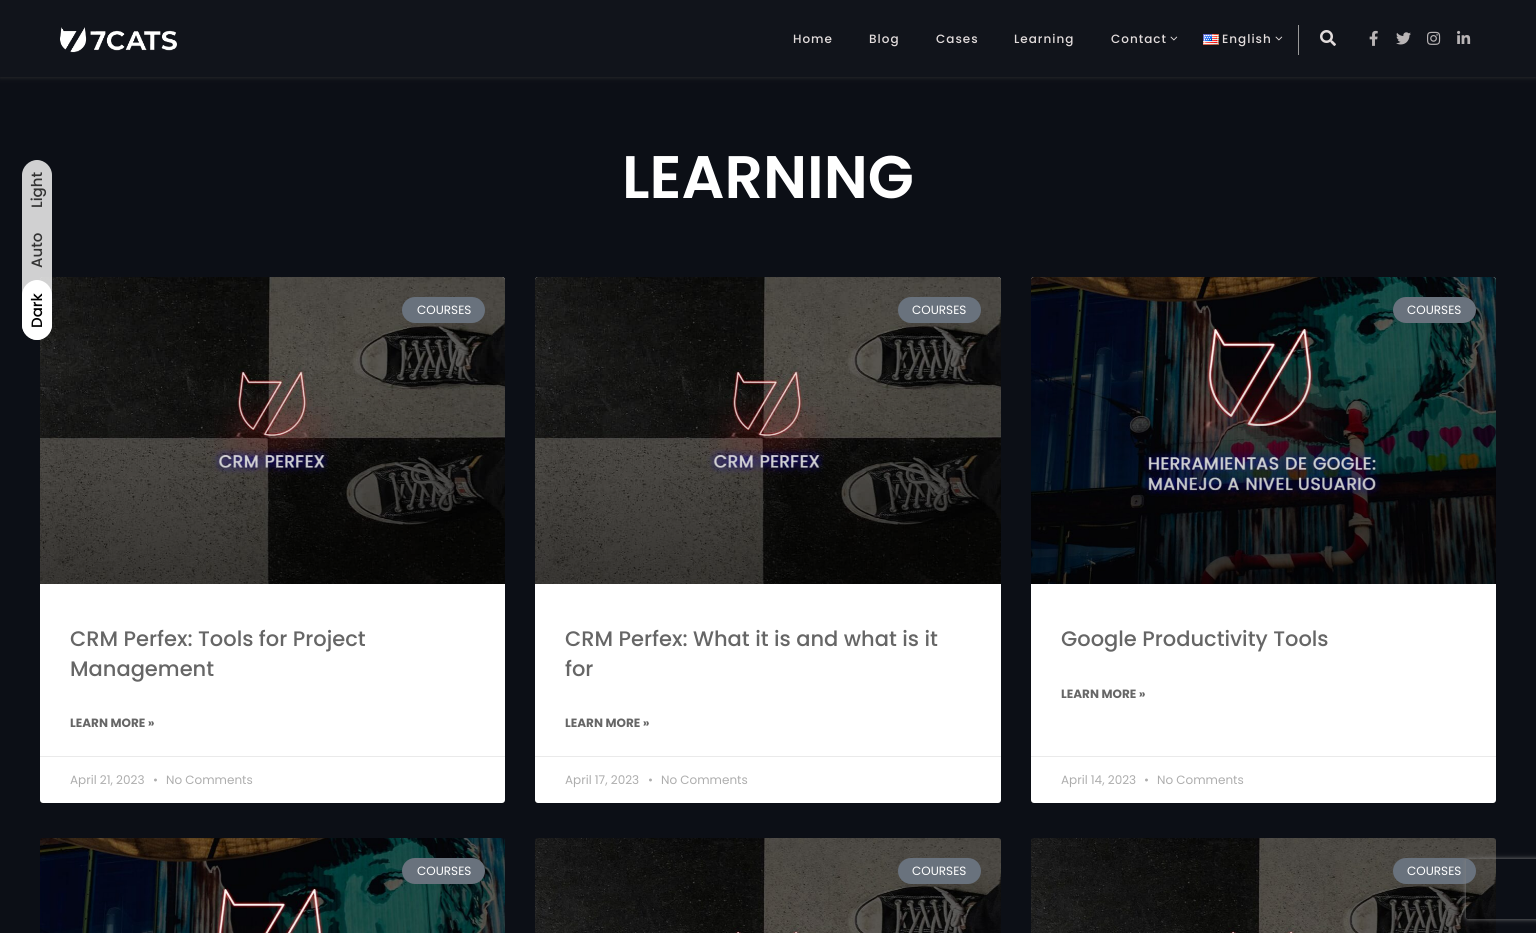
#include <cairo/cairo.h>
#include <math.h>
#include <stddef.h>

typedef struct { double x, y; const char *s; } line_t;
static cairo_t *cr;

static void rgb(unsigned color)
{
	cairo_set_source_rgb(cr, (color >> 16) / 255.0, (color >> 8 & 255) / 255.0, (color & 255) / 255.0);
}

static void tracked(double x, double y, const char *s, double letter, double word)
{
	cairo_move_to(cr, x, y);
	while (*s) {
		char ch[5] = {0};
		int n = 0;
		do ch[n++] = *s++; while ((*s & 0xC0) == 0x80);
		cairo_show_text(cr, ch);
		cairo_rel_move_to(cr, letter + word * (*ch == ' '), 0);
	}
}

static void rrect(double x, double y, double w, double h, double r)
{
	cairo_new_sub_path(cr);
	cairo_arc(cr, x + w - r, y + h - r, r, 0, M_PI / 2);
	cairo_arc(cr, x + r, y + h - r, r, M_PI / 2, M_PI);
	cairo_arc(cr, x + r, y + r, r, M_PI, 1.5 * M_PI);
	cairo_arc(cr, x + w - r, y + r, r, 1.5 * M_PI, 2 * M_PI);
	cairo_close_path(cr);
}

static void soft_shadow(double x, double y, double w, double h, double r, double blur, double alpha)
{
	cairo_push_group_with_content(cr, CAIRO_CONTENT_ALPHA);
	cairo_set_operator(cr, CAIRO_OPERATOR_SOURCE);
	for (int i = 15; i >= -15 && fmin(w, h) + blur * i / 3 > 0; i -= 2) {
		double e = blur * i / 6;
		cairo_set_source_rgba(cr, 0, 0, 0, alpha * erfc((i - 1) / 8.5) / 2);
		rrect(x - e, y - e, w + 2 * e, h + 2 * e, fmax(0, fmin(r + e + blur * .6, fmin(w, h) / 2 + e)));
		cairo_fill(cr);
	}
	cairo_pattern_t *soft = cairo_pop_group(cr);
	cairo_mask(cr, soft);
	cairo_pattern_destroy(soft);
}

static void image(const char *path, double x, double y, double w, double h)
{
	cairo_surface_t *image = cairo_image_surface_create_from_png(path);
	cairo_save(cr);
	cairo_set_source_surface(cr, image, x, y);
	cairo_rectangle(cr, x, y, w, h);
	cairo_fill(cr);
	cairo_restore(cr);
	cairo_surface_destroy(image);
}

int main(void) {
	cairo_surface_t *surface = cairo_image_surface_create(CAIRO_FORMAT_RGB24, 1536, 933);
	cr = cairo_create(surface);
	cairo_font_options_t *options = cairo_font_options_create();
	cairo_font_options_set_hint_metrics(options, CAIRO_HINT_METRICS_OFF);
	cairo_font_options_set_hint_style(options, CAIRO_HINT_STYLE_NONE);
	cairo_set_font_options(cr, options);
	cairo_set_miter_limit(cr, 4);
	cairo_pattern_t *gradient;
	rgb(0x0c0f16);
	cairo_paint(cr);
	rgb(0x333333);
	soft_shadow(0, 0, 1536, 77, 0, 2.5, 1);
	rgb(0x11141b);
	cairo_rectangle(cr, 0, 0, 1536, 77);
	cairo_fill(cr);
	image("img/1.png", 60, 27, 117, 26);
	image("img/2.png", 1170, 36, 8, 5);
	image("img/3.png", 1203, 34, 16, 11);
	image("img/2.png", 1275, 36, 8, 5);
	rgb(0x999999);
	cairo_rectangle(cr, 1298, 25, 1, 30);
	cairo_fill(cr);
	image("img/4.png", 1320, 30, 16, 16);
	image("img/5.png", 1369, 30, 9, 16);
	image("img/6.png", 1396, 32, 15, 13);
	image("img/7.png", 1427, 31, 14, 14);
	image("img/8.png", 1457, 30, 14, 14);
	rgb(0xffffff);
	rrect(40, 277, 465, 526, 3);
	cairo_fill(cr);
	image("img/9.png", 40, 277, 465, 307);
	cairo_set_source_rgba(cr, 0.902, 0.902, 0.902, 0.9);
	cairo_new_path(cr);
	cairo_move_to(cr, 22, 325);
	cairo_line_to(cr, 22, 175);
	cairo_curve_to(cr, 22, 167, 29, 160, 37, 160);
	cairo_curve_to(cr, 45, 160, 52, 167, 52, 175);
	cairo_line_to(cr, 52, 325);
	cairo_curve_to(cr, 52, 333, 45, 340, 37, 340);
	cairo_curve_to(cr, 29, 340, 22, 333, 22, 325);
	cairo_close_path(cr);
	cairo_fill(cr);
	rgb(0xffffff);
	cairo_new_path(cr);
	cairo_move_to(cr, 22, 325);
	cairo_line_to(cr, 22, 295);
	cairo_curve_to(cr, 22, 287, 29, 280, 37, 280);
	cairo_curve_to(cr, 45, 280, 52, 287, 52, 295);
	cairo_line_to(cr, 52, 325);
	cairo_curve_to(cr, 52, 333, 45, 340, 37, 340);
	cairo_curve_to(cr, 29, 340, 22, 333, 22, 325);
	cairo_close_path(cr);
	cairo_fill(cr);
	gradient = cairo_pattern_create_linear(273, 584, 273, 277);
	cairo_pattern_add_color_stop_rgba(gradient, 0, 0, 0, 0, 0.35);
	cairo_pattern_add_color_stop_rgba(gradient, 0.75, 0, 0, 0, 0);
	cairo_set_source(cr, gradient);
	cairo_pattern_destroy(gradient);
	cairo_rectangle(cr, 40, 371, 465, 213);
	cairo_fill(cr);
	rgb(0x69727d);
	rrect(402, 297, 83, 26, 13);
	cairo_fill(cr);
	rgb(0xeaeaea);
	cairo_rectangle(cr, 40, 756, 465, 1);
	cairo_fill(cr);
	rgb(0xffffff);
	rrect(535, 277, 466, 526, 3);
	cairo_fill(cr);
	image("img/10.png", 535, 277, 466, 307);
	gradient = cairo_pattern_create_linear(768, 584, 768, 277);
	cairo_pattern_add_color_stop_rgba(gradient, 0, 0, 0, 0, 0.35);
	cairo_pattern_add_color_stop_rgba(gradient, 0.75, 0, 0, 0, 0);
	cairo_set_source(cr, gradient);
	cairo_pattern_destroy(gradient);
	cairo_rectangle(cr, 535, 371, 466, 213);
	cairo_fill(cr);
	rgb(0x69727d);
	rrect(898, 297, 83, 26, 13);
	cairo_fill(cr);
	rgb(0xeaeaea);
	cairo_rectangle(cr, 535, 756, 466, 1);
	cairo_fill(cr);
	rgb(0xffffff);
	rrect(1031, 277, 465, 526, 3);
	cairo_fill(cr);
	image("img/11.png", 1031, 277, 465, 307);
	gradient = cairo_pattern_create_linear(1264, 584, 1264, 277);
	cairo_pattern_add_color_stop_rgba(gradient, 0, 0, 0, 0, 0.35);
	cairo_pattern_add_color_stop_rgba(gradient, 0.75, 0, 0, 0, 0);
	cairo_set_source(cr, gradient);
	cairo_pattern_destroy(gradient);
	cairo_rectangle(cr, 1031, 368, 465, 216);
	cairo_fill(cr);
	rgb(0x69727d);
	rrect(1393, 297, 83, 26, 13);
	cairo_fill(cr);
	rgb(0xeaeaea);
	cairo_rectangle(cr, 1031, 756, 465, 1);
	cairo_fill(cr);
	image("img/12.png", 40, 838, 465, 95);
	gradient = cairo_pattern_create_linear(273, 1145, 273, 838);
	cairo_pattern_add_color_stop_rgba(gradient, 0, 0, 0, 0, 0.35);
	cairo_pattern_add_color_stop_rgba(gradient, 0.75, 0, 0, 0, 0);
	cairo_set_source(cr, gradient);
	cairo_pattern_destroy(gradient);
	cairo_rectangle(cr, 218, 929, 103, 4);
	cairo_fill(cr);
	rgb(0x69727d);
	rrect(402, 858, 83, 26, 13);
	cairo_fill(cr);
	image("img/13.png", 535, 838, 466, 95);
	gradient = cairo_pattern_create_linear(768, 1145, 768, 838);
	cairo_pattern_add_color_stop_rgba(gradient, 0, 0, 0, 0, 0.35);
	cairo_pattern_add_color_stop_rgba(gradient, 0.75, 0, 0, 0, 0);
	cairo_set_source(cr, gradient);
	cairo_pattern_destroy(gradient);
	cairo_rectangle(cr, 737, 932, 128, 1);
	cairo_fill(cr);
	rgb(0x69727d);
	rrect(898, 858, 83, 26, 13);
	cairo_fill(cr);
	image("img/14.png", 1031, 838, 465, 95);
	gradient = cairo_pattern_create_linear(1264, 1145, 1264, 838);
	cairo_pattern_add_color_stop_rgba(gradient, 0, 0, 0, 0, 0.35);
	cairo_pattern_add_color_stop_rgba(gradient, 0.75, 0, 0, 0, 0);
	cairo_set_source(cr, gradient);
	cairo_pattern_destroy(gradient);
	cairo_rectangle(cr, 1232, 932, 128, 1);
	cairo_fill(cr);
	rgb(0x69727d);
	rrect(1393, 858, 83, 26, 13);
	cairo_fill(cr);
	cairo_save(cr);
	cairo_set_fill_rule(cr, CAIRO_FILL_RULE_EVEN_ODD);
	cairo_new_path(cr);
	cairo_move_to(cr, 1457, 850);
	cairo_line_to(cr, 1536, 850);
	cairo_line_to(cr, 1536, 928);
	cairo_line_to(cr, 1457, 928);
	cairo_close_path(cr);
	cairo_move_to(cr, 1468, 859);
	cairo_line_to(cr, 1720, 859);
	cairo_curve_to(cr, 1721, 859, 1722, 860, 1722, 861);
	cairo_line_to(cr, 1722, 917);
	cairo_curve_to(cr, 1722, 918, 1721, 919, 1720, 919);
	cairo_line_to(cr, 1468, 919);
	cairo_curve_to(cr, 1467, 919, 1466, 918, 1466, 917);
	cairo_line_to(cr, 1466, 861);
	cairo_curve_to(cr, 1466, 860, 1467, 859, 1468, 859);
	cairo_close_path(cr);
	cairo_clip(cr);
	rgb(0x808080);
	soft_shadow(1466, 859, 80, 60, 2, 2.5, 1);
	cairo_restore(cr);
	cairo_select_font_face(cr, "Poppins Medium", CAIRO_FONT_SLANT_NORMAL, CAIRO_FONT_WEIGHT_NORMAL);
	cairo_set_font_size(cr, 12);
	rgb(0xe2dcdc);
	{
		static const line_t items[] = {
			{793, 43, "Home"},
			{869, 43, "Blog"},
			{936, 43, "Cases"},
			{1014, 43, "Learning"},
			{1111, 43, "Contact"},
			{1222, 43, "English"},
		};
		for (size_t i = 0; i < sizeof items / sizeof *items; i++) {
			tracked(items[i].x, items[i].y, items[i].s, 1, 0);
		}
	}
	cairo_set_font_size(cr, 15);
	rgb(0x333333);
	cairo_save(cr);
	cairo_translate(cr, 42, 208);
	cairo_rotate(cr, -90 * M_PI / 180);
	cairo_move_to(cr, 0, 0);
	cairo_show_text(cr, "Light");
	cairo_restore(cr);
	cairo_save(cr);
	cairo_translate(cr, 42, 268);
	cairo_rotate(cr, -90 * M_PI / 180);
	cairo_move_to(cr, 0, 0);
	cairo_show_text(cr, "Auto");
	cairo_restore(cr);
	rgb(0x000000);
	cairo_save(cr);
	cairo_translate(cr, 42, 328);
	cairo_rotate(cr, -90 * M_PI / 180);
	cairo_move_to(cr, 0, 0);
	cairo_show_text(cr, "Dark");
	cairo_restore(cr);
	cairo_select_font_face(cr, "Poppins SemiBold", CAIRO_FONT_SLANT_NORMAL, CAIRO_FONT_WEIGHT_NORMAL);
	cairo_set_font_size(cr, 60);
	rgb(0xffffff);
	cairo_move_to(cr, 622, 198);
	cairo_show_text(cr, "LEARNING");
	cairo_select_font_face(cr, "Poppins", CAIRO_FONT_SLANT_NORMAL, CAIRO_FONT_WEIGHT_NORMAL);
	cairo_set_font_size(cr, 12);
	cairo_move_to(cr, 417, 314);
	cairo_show_text(cr, "COURSES");
	cairo_select_font_face(cr, "Poppins Medium", CAIRO_FONT_SLANT_NORMAL, CAIRO_FONT_WEIGHT_NORMAL);
	cairo_set_font_size(cr, 21);
	rgb(0x666666);
	cairo_move_to(cr, 70, 646);
	cairo_show_text(cr, "CRM Perfex: Tools for Project");
	cairo_move_to(cr, 70, 676);
	cairo_show_text(cr, "Management");
	cairo_select_font_face(cr, "Poppins", CAIRO_FONT_SLANT_NORMAL, CAIRO_FONT_WEIGHT_BOLD);
	cairo_set_font_size(cr, 12);
	cairo_move_to(cr, 70, 727);
	cairo_show_text(cr, "LEARN MORE »");
	cairo_select_font_face(cr, "Poppins", CAIRO_FONT_SLANT_NORMAL, CAIRO_FONT_WEIGHT_NORMAL);
	rgb(0xadadad);
	{
		static const line_t items[] = {
			{70, 784, "April 21, 2023"},
			{153, 784, "•"},
			{166, 784, "No Comments"},
		};
		for (size_t i = 0; i < sizeof items / sizeof *items; i++) {
			cairo_move_to(cr, items[i].x, items[i].y);
			cairo_show_text(cr, items[i].s);
		}
	}
	rgb(0xffffff);
	cairo_move_to(cr, 912, 314);
	cairo_show_text(cr, "COURSES");
	cairo_select_font_face(cr, "Poppins Medium", CAIRO_FONT_SLANT_NORMAL, CAIRO_FONT_WEIGHT_NORMAL);
	cairo_set_font_size(cr, 21);
	rgb(0x666666);
	cairo_move_to(cr, 565, 646);
	cairo_show_text(cr, "CRM Perfex: What it is and what is it");
	cairo_move_to(cr, 565, 676);
	cairo_show_text(cr, "for");
	cairo_select_font_face(cr, "Poppins", CAIRO_FONT_SLANT_NORMAL, CAIRO_FONT_WEIGHT_BOLD);
	cairo_set_font_size(cr, 12);
	cairo_move_to(cr, 565, 727);
	cairo_show_text(cr, "LEARN MORE »");
	cairo_select_font_face(cr, "Poppins", CAIRO_FONT_SLANT_NORMAL, CAIRO_FONT_WEIGHT_NORMAL);
	rgb(0xadadad);
	{
		static const line_t items[] = {
			{565, 784, "April 17, 2023"},
			{648, 784, "•"},
			{661, 784, "No Comments"},
		};
		for (size_t i = 0; i < sizeof items / sizeof *items; i++) {
			cairo_move_to(cr, items[i].x, items[i].y);
			cairo_show_text(cr, items[i].s);
		}
	}
	rgb(0xffffff);
	cairo_move_to(cr, 1407, 314);
	cairo_show_text(cr, "COURSES");
	cairo_select_font_face(cr, "Poppins Medium", CAIRO_FONT_SLANT_NORMAL, CAIRO_FONT_WEIGHT_NORMAL);
	cairo_set_font_size(cr, 21);
	rgb(0x666666);
	cairo_move_to(cr, 1061, 646);
	cairo_show_text(cr, "Google Productivity Tools");
	cairo_select_font_face(cr, "Poppins", CAIRO_FONT_SLANT_NORMAL, CAIRO_FONT_WEIGHT_BOLD);
	cairo_set_font_size(cr, 12);
	cairo_move_to(cr, 1061, 698);
	cairo_show_text(cr, "LEARN MORE »");
	cairo_select_font_face(cr, "Poppins", CAIRO_FONT_SLANT_NORMAL, CAIRO_FONT_WEIGHT_NORMAL);
	rgb(0xadadad);
	{
		static const line_t items[] = {
			{1061, 784, "April 14, 2023"},
			{1144, 784, "•"},
			{1157, 784, "No Comments"},
		};
		for (size_t i = 0; i < sizeof items / sizeof *items; i++) {
			cairo_move_to(cr, items[i].x, items[i].y);
			cairo_show_text(cr, items[i].s);
		}
	}
	rgb(0xffffff);
	{
		static const line_t items[] = {
			{417, 875, "COURSES"},
			{912, 875, "COURSES"},
			{1407, 875, "COURSES"},
		};
		for (size_t i = 0; i < sizeof items / sizeof *items; i++) {
			cairo_move_to(cr, items[i].x, items[i].y);
			cairo_show_text(cr, items[i].s);
		}
	}
	cairo_surface_write_to_png(surface, "page.png");
	cairo_font_options_destroy(options);
	cairo_destroy(cr);
	cairo_surface_destroy(surface);
	return 0;
}
